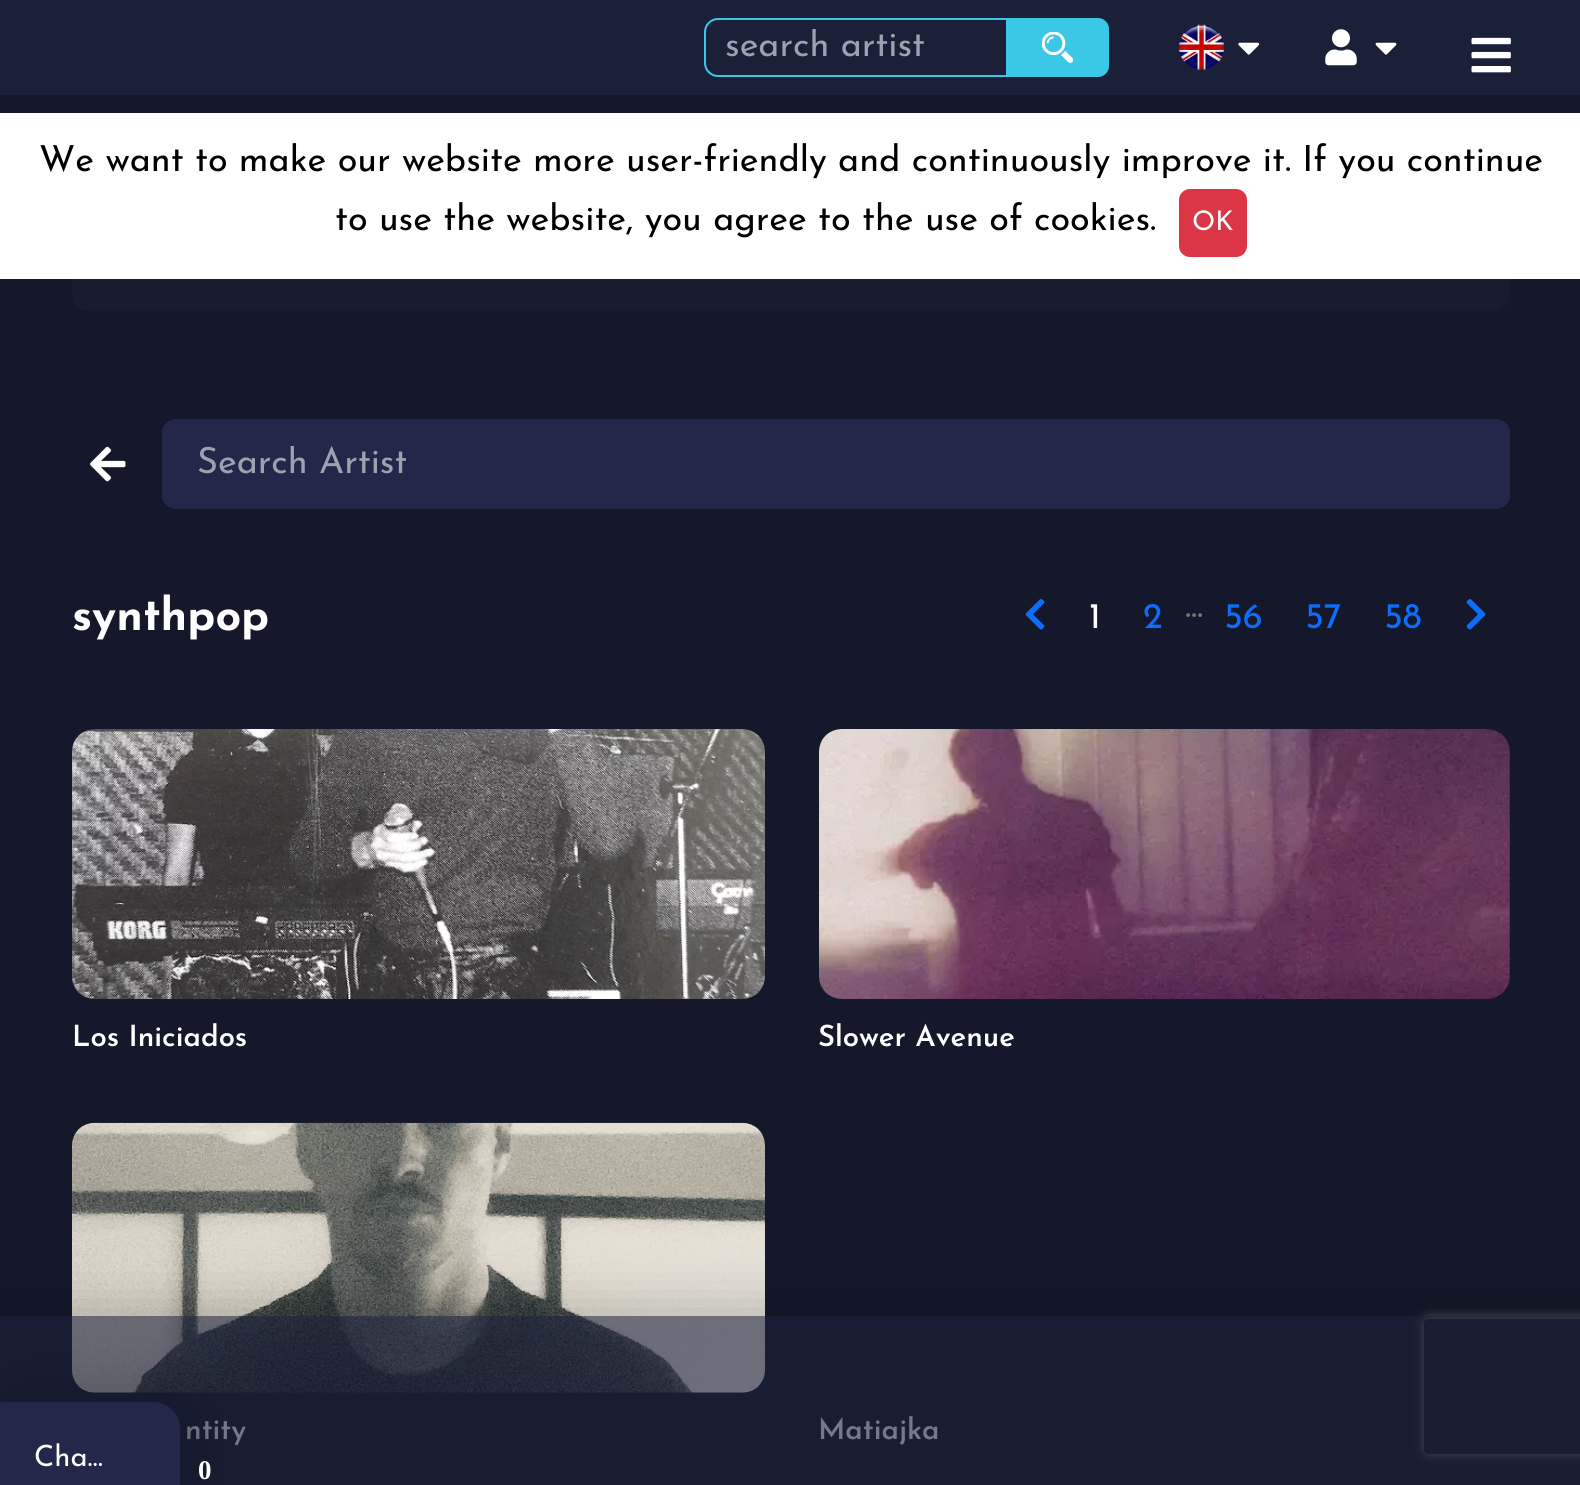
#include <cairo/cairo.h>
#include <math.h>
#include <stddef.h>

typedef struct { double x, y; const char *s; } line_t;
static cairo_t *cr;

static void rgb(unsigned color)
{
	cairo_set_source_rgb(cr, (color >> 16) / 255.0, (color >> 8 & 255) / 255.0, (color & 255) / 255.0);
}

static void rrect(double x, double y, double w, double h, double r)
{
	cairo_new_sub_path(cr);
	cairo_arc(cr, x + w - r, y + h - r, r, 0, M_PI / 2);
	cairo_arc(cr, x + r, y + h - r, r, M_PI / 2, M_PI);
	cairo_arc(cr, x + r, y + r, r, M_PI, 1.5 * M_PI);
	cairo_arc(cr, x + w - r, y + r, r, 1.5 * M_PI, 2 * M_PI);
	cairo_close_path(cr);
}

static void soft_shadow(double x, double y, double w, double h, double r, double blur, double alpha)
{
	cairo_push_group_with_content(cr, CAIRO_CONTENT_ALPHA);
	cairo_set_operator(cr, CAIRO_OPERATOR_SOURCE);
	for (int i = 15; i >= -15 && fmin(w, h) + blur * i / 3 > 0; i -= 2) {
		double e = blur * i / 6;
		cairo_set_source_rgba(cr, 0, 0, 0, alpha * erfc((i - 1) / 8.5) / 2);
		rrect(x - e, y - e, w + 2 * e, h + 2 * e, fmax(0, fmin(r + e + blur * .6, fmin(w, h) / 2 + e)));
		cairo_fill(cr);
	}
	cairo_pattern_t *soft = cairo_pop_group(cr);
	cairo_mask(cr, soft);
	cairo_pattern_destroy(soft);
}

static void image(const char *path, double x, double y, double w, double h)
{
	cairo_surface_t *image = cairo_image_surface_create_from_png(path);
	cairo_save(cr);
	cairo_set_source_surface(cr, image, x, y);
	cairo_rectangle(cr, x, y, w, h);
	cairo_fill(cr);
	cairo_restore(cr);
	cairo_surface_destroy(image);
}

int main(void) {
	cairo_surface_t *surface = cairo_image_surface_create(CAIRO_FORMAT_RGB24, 1580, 1485);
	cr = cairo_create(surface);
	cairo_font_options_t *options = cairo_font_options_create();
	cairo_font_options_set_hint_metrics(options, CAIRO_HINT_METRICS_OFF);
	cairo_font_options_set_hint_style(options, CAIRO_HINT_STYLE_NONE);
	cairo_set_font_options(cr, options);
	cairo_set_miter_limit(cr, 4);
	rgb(0x14182a);
	cairo_paint(cr);
	rgb(0x1b2039);
	cairo_rectangle(cr, 0, 0, 1580, 95);
	cairo_fill(cr);
	rrect(705, 19, 403, 57, 13);
	rgb(0x3bc8e7);
	cairo_stroke(cr);
	cairo_new_path(cr);
	cairo_move_to(cr, 1006, 18);
	cairo_line_to(cr, 1098, 18);
	cairo_curve_to(cr, 1104, 18, 1109, 23, 1109, 29);
	cairo_line_to(cr, 1109, 66);
	cairo_curve_to(cr, 1109, 72, 1104, 77, 1098, 77);
	cairo_line_to(cr, 1006, 77);
	cairo_close_path(cr);
	cairo_fill(cr);
	image("img/1.png", 1042, 32, 31, 31);
	image("img/2.png", 1179, 24, 45, 46);
	image("img/3.png", 1238, 42, 22, 13);
	image("img/4.png", 1325, 29, 32, 37);
	image("img/5.png", 1375, 42, 22, 13);
	rgb(0x181c2f);
	rrect(72, 221, 1438, 90, 18);
	cairo_fill(cr);
	image("img/6.png", 90, 446, 36, 36);
	rgb(0x23284a);
	rrect(162, 419, 1348, 90, 14);
	cairo_fill(cr);
	image("img/7.png", 1025, 599, 20, 31);
	image("img/8.png", 1466, 599, 20, 31);
	image("img/9.png", 72, 729, 693, 270);
	image("img/10.png", 819, 729, 691, 270);
	image("img/11.png", 72, 1122, 693, 271);
	image("img/12.png", 1471, 37, 40, 36);
	cairo_save(cr);
	cairo_set_fill_rule(cr, CAIRO_FILL_RULE_EVEN_ODD);
	cairo_new_path(cr);
	cairo_move_to(cr, 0, 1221);
	cairo_line_to(cr, 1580, 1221);
	cairo_line_to(cr, 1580, 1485);
	cairo_line_to(cr, 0, 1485);
	cairo_close_path(cr);
	cairo_move_to(cr, 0, 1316);
	cairo_line_to(cr, 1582, 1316);
	cairo_line_to(cr, 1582, 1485);
	cairo_line_to(cr, 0, 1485);
	cairo_close_path(cr);
	cairo_clip(cr);
	rgb(0x040404);
	soft_shadow(-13, 1303, 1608, 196, 0, 27, 0.2);
	cairo_restore(cr);
	rgb(0xffffff);
	cairo_rectangle(cr, 0, 113, 1580, 166);
	cairo_fill(cr);
	rgb(0xdc3545);
	rrect(1180, 190, 66, 66, 10);
	cairo_fill_preserve(cr);
	cairo_stroke(cr);
	cairo_save(cr);
	cairo_set_fill_rule(cr, CAIRO_FILL_RULE_EVEN_ODD);
	cairo_new_path(cr);
	cairo_move_to(cr, 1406, 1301);
	cairo_line_to(cr, 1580, 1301);
	cairo_line_to(cr, 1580, 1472);
	cairo_line_to(cr, 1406, 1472);
	cairo_close_path(cr);
	cairo_move_to(cr, 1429, 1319);
	cairo_line_to(cr, 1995, 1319);
	cairo_curve_to(cr, 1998, 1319, 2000, 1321, 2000, 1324);
	cairo_line_to(cr, 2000, 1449);
	cairo_curve_to(cr, 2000, 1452, 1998, 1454, 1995, 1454);
	cairo_line_to(cr, 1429, 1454);
	cairo_curve_to(cr, 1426, 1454, 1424, 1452, 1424, 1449);
	cairo_line_to(cr, 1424, 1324);
	cairo_curve_to(cr, 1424, 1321, 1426, 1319, 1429, 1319);
	cairo_close_path(cr);
	cairo_clip(cr);
	rgb(0x808080);
	soft_shadow(1424, 1319, 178, 135, 5, 5.5, 1);
	cairo_restore(cr);
	cairo_save(cr);
	cairo_rectangle(cr, 725, 29, 330, 36);
	cairo_clip(cr);
	cairo_select_font_face(cr, "Josefin Sans", CAIRO_FONT_SLANT_NORMAL, CAIRO_FONT_WEIGHT_NORMAL);
	cairo_set_font_size(cr, 36);
	rgb(0x9ca3af);
	cairo_move_to(cr, 725, 56);
	cairo_show_text(cr, "search artist");
	cairo_restore(cr);
	cairo_save(cr);
	cairo_rectangle(cr, 198, 446, 1276, 36);
	cairo_clip(cr);
	cairo_select_font_face(cr, "Josefin Sans", CAIRO_FONT_SLANT_NORMAL, CAIRO_FONT_WEIGHT_NORMAL);
	cairo_set_font_size(cr, 36);
	rgb(0x9ca3af);
	cairo_move_to(cr, 197, 473);
	cairo_show_text(cr, "Search Artist");
	cairo_restore(cr);
	cairo_select_font_face(cr, "Josefin Sans", CAIRO_FONT_SLANT_NORMAL, CAIRO_FONT_WEIGHT_BOLD);
	cairo_set_font_size(cr, 45);
	rgb(0xffffff);
	cairo_move_to(cr, 72, 630);
	cairo_show_text(cr, "synthpop");
	cairo_select_font_face(cr, "Josefin Sans", CAIRO_FONT_SLANT_NORMAL, CAIRO_FONT_WEIGHT_NORMAL);
	cairo_set_font_size(cr, 36);
	cairo_move_to(cr, 1089, 628);
	cairo_show_text(cr, "1");
	rgb(0x0d6efd);
	cairo_move_to(cr, 1143, 628);
	cairo_show_text(cr, "2");
	rgb(0x777777);
	cairo_move_to(cr, 1185, 617);
	cairo_show_text(cr, "...");
	rgb(0x0d6efd);
	{
		static const line_t items[] = {
			{1224, 628, "56"},
			{1305, 628, "57"},
			{1384, 628, "58"},
		};
		for (size_t i = 0; i < sizeof items / sizeof *items; i++) {
			cairo_move_to(cr, items[i].x, items[i].y);
			cairo_show_text(cr, items[i].s);
		}
	}
	cairo_select_font_face(cr, "Josefin Sans SemiBold", CAIRO_FONT_SLANT_NORMAL, CAIRO_FONT_WEIGHT_NORMAL);
	cairo_set_font_size(cr, 29.25);
	rgb(0xffffff);
	{
		static const line_t items[] = {
			{72, 1046, "Los Iniciados"},
			{818, 1046, "Slower Avenue"},
			{185, 1439, "ntity"},
			{818, 1439, "Matiajka"},
		};
		for (size_t i = 0; i < sizeof items / sizeof *items; i++) {
			cairo_move_to(cr, items[i].x, items[i].y);
			cairo_show_text(cr, items[i].s);
		}
	}
	cairo_set_source_rgba(cr, 0.106, 0.125, 0.224, 0.6);
	cairo_rectangle(cr, 0, 1316, 1580, 169);
	cairo_fill(cr);
	image("img/13.png", 180, 1471, 1, 1);
	rgb(0x040404);
	soft_shadow(-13, 1388, 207, 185, 41, 27, 0.2);
	rgb(0x23284a);
	cairo_new_path(cr);
	cairo_move_to(cr, 0, 1402);
	cairo_line_to(cr, 153, 1402);
	cairo_curve_to(cr, 168, 1402, 180, 1414, 180, 1429);
	cairo_line_to(cr, 180, 1485);
	cairo_curve_to(cr, 180, 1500, 168, 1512, 153, 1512);
	cairo_line_to(cr, 0, 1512);
	cairo_close_path(cr);
	cairo_fill(cr);
	cairo_select_font_face(cr, "Josefin Sans", CAIRO_FONT_SLANT_NORMAL, CAIRO_FONT_WEIGHT_NORMAL);
	rgb(0xffffff);
	cairo_move_to(cr, 34, 1466);
	cairo_show_text(cr, "Cha…");
	cairo_select_font_face(cr, "Liberation Serif", CAIRO_FONT_SLANT_NORMAL, CAIRO_FONT_WEIGHT_BOLD);
	cairo_set_font_size(cr, 27);
	cairo_move_to(cr, 198, 1479);
	cairo_show_text(cr, "0");
	cairo_select_font_face(cr, "Josefin Sans", CAIRO_FONT_SLANT_NORMAL, CAIRO_FONT_WEIGHT_NORMAL);
	cairo_set_font_size(cr, 36);
	rgb(0x000000);
	cairo_move_to(cr, 39, 171);
	cairo_show_text(cr, "We want to make our website more user-friendly and continuously improve it. If you continue");
	cairo_move_to(cr, 335, 230);
	cairo_show_text(cr, "to use the website, you agree to the use of cookies.");
	cairo_set_font_size(cr, 27);
	rgb(0xffffff);
	cairo_move_to(cr, 1192, 230);
	cairo_show_text(cr, "OK");
	cairo_surface_write_to_png(surface, "page.png");
	cairo_font_options_destroy(options);
	cairo_destroy(cr);
	cairo_surface_destroy(surface);
	return 0;
}
